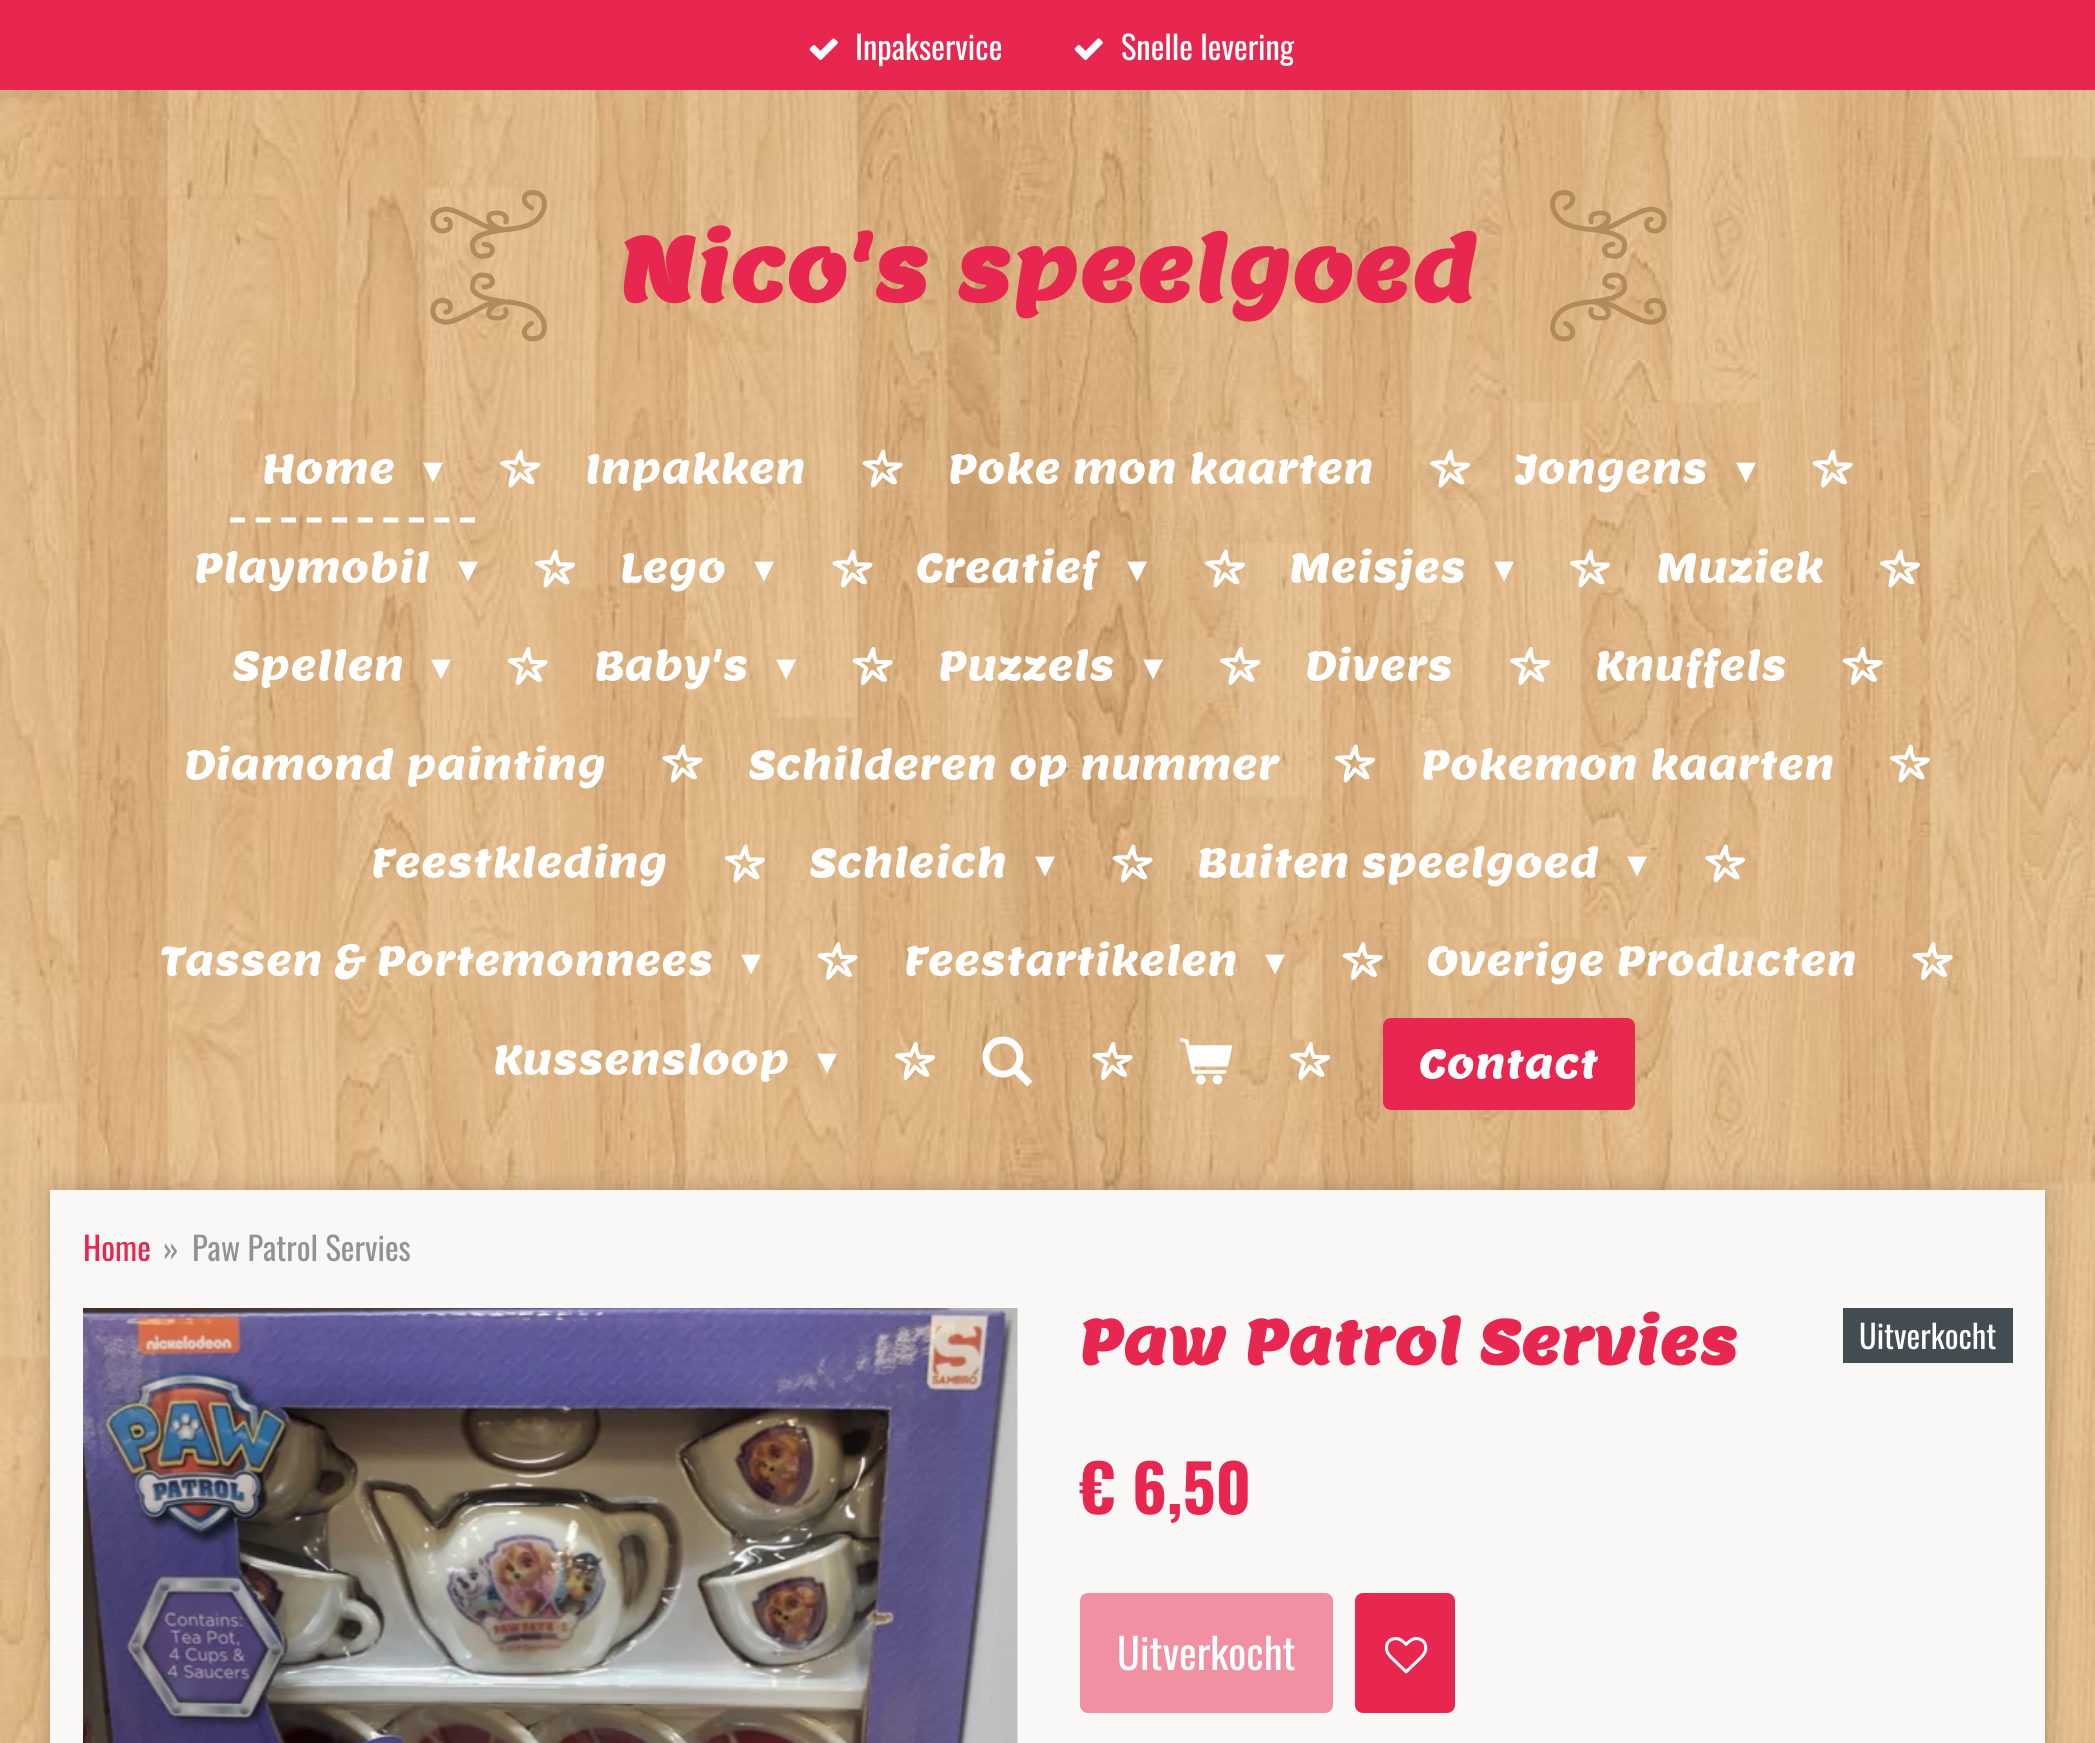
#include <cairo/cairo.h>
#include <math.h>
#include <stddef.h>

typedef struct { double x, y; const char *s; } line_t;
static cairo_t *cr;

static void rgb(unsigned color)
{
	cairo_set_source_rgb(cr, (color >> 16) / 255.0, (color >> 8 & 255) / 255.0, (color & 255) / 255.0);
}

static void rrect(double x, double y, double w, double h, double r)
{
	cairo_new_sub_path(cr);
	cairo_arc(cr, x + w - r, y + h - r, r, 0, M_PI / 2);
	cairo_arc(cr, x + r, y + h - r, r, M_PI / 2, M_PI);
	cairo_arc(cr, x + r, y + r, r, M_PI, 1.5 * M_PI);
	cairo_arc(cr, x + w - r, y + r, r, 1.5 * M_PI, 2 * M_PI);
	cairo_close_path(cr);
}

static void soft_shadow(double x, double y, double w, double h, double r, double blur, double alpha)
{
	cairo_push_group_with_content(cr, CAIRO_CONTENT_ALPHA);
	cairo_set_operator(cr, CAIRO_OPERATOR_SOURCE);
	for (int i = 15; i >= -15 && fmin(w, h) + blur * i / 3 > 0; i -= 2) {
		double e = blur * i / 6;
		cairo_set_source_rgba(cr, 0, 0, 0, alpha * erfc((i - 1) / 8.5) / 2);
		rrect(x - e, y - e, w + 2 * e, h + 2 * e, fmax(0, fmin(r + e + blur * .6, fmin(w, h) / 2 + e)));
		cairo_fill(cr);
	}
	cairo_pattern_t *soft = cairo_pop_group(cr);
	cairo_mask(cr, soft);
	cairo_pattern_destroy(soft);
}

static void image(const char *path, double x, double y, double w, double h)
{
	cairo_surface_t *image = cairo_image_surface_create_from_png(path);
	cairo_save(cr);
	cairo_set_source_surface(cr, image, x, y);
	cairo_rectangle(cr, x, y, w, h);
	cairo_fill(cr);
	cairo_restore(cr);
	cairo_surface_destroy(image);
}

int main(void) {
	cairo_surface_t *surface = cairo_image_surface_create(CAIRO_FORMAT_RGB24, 2095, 1743);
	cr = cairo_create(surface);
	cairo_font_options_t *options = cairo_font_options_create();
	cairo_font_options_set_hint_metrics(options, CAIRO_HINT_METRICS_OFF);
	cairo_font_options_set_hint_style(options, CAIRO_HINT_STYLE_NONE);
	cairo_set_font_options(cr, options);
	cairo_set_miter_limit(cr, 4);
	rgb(0xffffff);
	cairo_paint(cr);
	rgb(0xe82750);
	cairo_rectangle(cr, 0, 0, 2095, 90);
	cairo_fill(cr);
	image("img/1.png", 809, 38, 29, 22);
	image("img/1.png", 1074, 38, 29, 22);
	image("img/34.png", 0, 90, 2095, 1653);
	image("img/2.png", 430, 190, 117, 152);
	image("img/3.png", 1550, 190, 117, 152);
	cairo_new_path(cr);
	cairo_move_to(cr, 230, 520);
	cairo_line_to(cr, 475, 520);
	rgb(0xffffff);
	cairo_set_line_width(cr, 5);
	cairo_set_dash(cr, (double[]){15, 10.55}, 2, 0);
	cairo_stroke(cr);
	image("img/4.png", 500, 449, 40, 39);
	image("img/5.png", 862, 449, 41, 39);
	image("img/6.png", 1430, 449, 40, 39);
	image("img/7.png", 1812, 449, 41, 39);
	image("img/8.png", 535, 549, 40, 39);
	image("img/9.png", 832, 549, 41, 39);
	image("img/10.png", 1205, 549, 40, 39);
	image("img/11.png", 1570, 549, 40, 39);
	image("img/12.png", 1880, 549, 40, 39);
	image("img/13.png", 507, 647, 41, 38);
	image("img/14.png", 852, 647, 41, 38);
	image("img/15.png", 1220, 647, 40, 38);
	image("img/16.png", 1510, 647, 40, 38);
	image("img/17.png", 1842, 647, 41, 38);
	image("img/18.png", 662, 744, 41, 39);
	image("img/19.png", 1335, 744, 40, 39);
	image("img/20.png", 1890, 744, 40, 39);
	image("img/21.png", 725, 844, 40, 39);
	image("img/22.png", 1112, 844, 41, 39);
	image("img/23.png", 1705, 844, 40, 39);
	image("img/24.png", 817, 942, 41, 38);
	image("img/25.png", 1342, 942, 41, 38);
	image("img/26.png", 1912, 942, 41, 38);
	image("img/27.png", 895, 1042, 40, 38);
	image("img/28.png", 982, 1036, 51, 51);
	image("img/29.png", 1092, 1042, 41, 38);
	image("img/30.png", 1179, 1038, 53, 47);
	image("img/31.png", 1290, 1042, 40, 38);
	rgb(0xe82750);
	rrect(1383, 1018, 252, 92, 8);
	cairo_fill(cr);
	rgb(0x000000);
	soft_shadow(50, 1190, 1995, 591, 0, 12.5, 0.2);
	rgb(0xf9f8f6);
	cairo_rectangle(cr, 50, 1190, 1995, 553);
	cairo_fill(cr);
	image("img/32.png", 83, 1308, 935, 435);
	rgb(0x424c51);
	cairo_rectangle(cr, 1843, 1308, 170, 55);
	cairo_fill(cr);
	rgb(0xf190a3);
	rrect(1080, 1593, 253, 120, 8);
	cairo_fill(cr);
	rgb(0xe82750);
	rrect(1355, 1593, 100, 120, 8);
	cairo_fill(cr);
	image("img/33.png", 1385, 1637, 43, 37);
	cairo_select_font_face(cr, "Oswald", CAIRO_FONT_SLANT_NORMAL, CAIRO_FONT_WEIGHT_NORMAL);
	cairo_set_font_size(cr, 32.5);
	rgb(0xffffff);
	cairo_move_to(cr, 855, 60);
	cairo_show_text(cr, "Inpakservice");
	cairo_move_to(cr, 1121, 60);
	cairo_show_text(cr, "Snelle levering");
	cairo_select_font_face(cr, "Lemon", CAIRO_FONT_SLANT_NORMAL, CAIRO_FONT_WEIGHT_BOLD);
	cairo_set_font_size(cr, 87.5);
	rgb(0xe82750);
	cairo_move_to(cr, 619, 301);
	cairo_show_text(cr, "Nico's speelgoed");
	cairo_select_font_face(cr, "Lemon", CAIRO_FONT_SLANT_NORMAL, CAIRO_FONT_WEIGHT_NORMAL);
	cairo_set_font_size(cr, 40);
	rgb(0xffffff);
	cairo_move_to(cr, 262, 483);
	cairo_show_text(cr, "Home");
	cairo_select_font_face(cr, "DejaVu Sans", CAIRO_FONT_SLANT_NORMAL, CAIRO_FONT_WEIGHT_NORMAL);
	cairo_move_to(cr, 423, 483);
	cairo_show_text(cr, "▾");
	cairo_select_font_face(cr, "Lemon", CAIRO_FONT_SLANT_NORMAL, CAIRO_FONT_WEIGHT_NORMAL);
	{
		static const line_t items[] = {
			{585, 483, "Inpakken"},
			{948, 483, "Poke mon kaarten"},
			{1515, 483, "Jongens"},
		};
		for (size_t i = 0; i < sizeof items / sizeof *items; i++) {
			cairo_move_to(cr, items[i].x, items[i].y);
			cairo_show_text(cr, items[i].s);
		}
	}
	cairo_select_font_face(cr, "DejaVu Sans", CAIRO_FONT_SLANT_NORMAL, CAIRO_FONT_WEIGHT_NORMAL);
	cairo_move_to(cr, 1736, 483);
	cairo_show_text(cr, "▾");
	cairo_select_font_face(cr, "Lemon", CAIRO_FONT_SLANT_NORMAL, CAIRO_FONT_WEIGHT_NORMAL);
	cairo_move_to(cr, 194, 582);
	cairo_show_text(cr, "Playmobil");
	cairo_select_font_face(cr, "DejaVu Sans", CAIRO_FONT_SLANT_NORMAL, CAIRO_FONT_WEIGHT_NORMAL);
	cairo_move_to(cr, 458, 582);
	cairo_show_text(cr, "▾");
	cairo_select_font_face(cr, "Lemon", CAIRO_FONT_SLANT_NORMAL, CAIRO_FONT_WEIGHT_NORMAL);
	cairo_move_to(cr, 620, 582);
	cairo_show_text(cr, "Lego");
	cairo_select_font_face(cr, "DejaVu Sans", CAIRO_FONT_SLANT_NORMAL, CAIRO_FONT_WEIGHT_NORMAL);
	cairo_move_to(cr, 754, 582);
	cairo_show_text(cr, "▾");
	cairo_select_font_face(cr, "Lemon", CAIRO_FONT_SLANT_NORMAL, CAIRO_FONT_WEIGHT_NORMAL);
	cairo_move_to(cr, 916, 582);
	cairo_show_text(cr, "Creatief");
	cairo_select_font_face(cr, "DejaVu Sans", CAIRO_FONT_SLANT_NORMAL, CAIRO_FONT_WEIGHT_NORMAL);
	cairo_move_to(cr, 1127, 582);
	cairo_show_text(cr, "▾");
	cairo_select_font_face(cr, "Lemon", CAIRO_FONT_SLANT_NORMAL, CAIRO_FONT_WEIGHT_NORMAL);
	cairo_move_to(cr, 1289, 582);
	cairo_show_text(cr, "Meisjes");
	cairo_select_font_face(cr, "DejaVu Sans", CAIRO_FONT_SLANT_NORMAL, CAIRO_FONT_WEIGHT_NORMAL);
	cairo_move_to(cr, 1494, 582);
	cairo_show_text(cr, "▾");
	cairo_select_font_face(cr, "Lemon", CAIRO_FONT_SLANT_NORMAL, CAIRO_FONT_WEIGHT_NORMAL);
	cairo_move_to(cr, 1656, 582);
	cairo_show_text(cr, "Muziek");
	cairo_move_to(cr, 232, 680);
	cairo_show_text(cr, "Spellen");
	cairo_select_font_face(cr, "DejaVu Sans", CAIRO_FONT_SLANT_NORMAL, CAIRO_FONT_WEIGHT_NORMAL);
	cairo_move_to(cr, 431, 680);
	cairo_show_text(cr, "▾");
	cairo_select_font_face(cr, "Lemon", CAIRO_FONT_SLANT_NORMAL, CAIRO_FONT_WEIGHT_NORMAL);
	cairo_move_to(cr, 594, 680);
	cairo_show_text(cr, "Baby's");
	cairo_select_font_face(cr, "DejaVu Sans", CAIRO_FONT_SLANT_NORMAL, CAIRO_FONT_WEIGHT_NORMAL);
	cairo_move_to(cr, 776, 680);
	cairo_show_text(cr, "▾");
	cairo_select_font_face(cr, "Lemon", CAIRO_FONT_SLANT_NORMAL, CAIRO_FONT_WEIGHT_NORMAL);
	cairo_move_to(cr, 938, 680);
	cairo_show_text(cr, "Puzzels");
	cairo_select_font_face(cr, "DejaVu Sans", CAIRO_FONT_SLANT_NORMAL, CAIRO_FONT_WEIGHT_NORMAL);
	cairo_move_to(cr, 1143, 680);
	cairo_show_text(cr, "▾");
	cairo_select_font_face(cr, "Lemon", CAIRO_FONT_SLANT_NORMAL, CAIRO_FONT_WEIGHT_NORMAL);
	{
		static const line_t items[] = {
			{1305, 680, "Divers"},
			{1595, 680, "Knuffels"},
			{184, 779, "Diamond painting"},
			{748, 779, "Schilderen op nummer"},
			{1421, 779, "Pokemon kaarten"},
			{371, 877, "Feestkleding"},
			{809, 877, "Schleich"},
		};
		for (size_t i = 0; i < sizeof items / sizeof *items; i++) {
			cairo_move_to(cr, items[i].x, items[i].y);
			cairo_show_text(cr, items[i].s);
		}
	}
	cairo_select_font_face(cr, "DejaVu Sans", CAIRO_FONT_SLANT_NORMAL, CAIRO_FONT_WEIGHT_NORMAL);
	cairo_move_to(cr, 1035, 877);
	cairo_show_text(cr, "▾");
	cairo_select_font_face(cr, "Lemon", CAIRO_FONT_SLANT_NORMAL, CAIRO_FONT_WEIGHT_NORMAL);
	cairo_move_to(cr, 1197, 877);
	cairo_show_text(cr, "Buiten speelgoed");
	cairo_select_font_face(cr, "DejaVu Sans", CAIRO_FONT_SLANT_NORMAL, CAIRO_FONT_WEIGHT_NORMAL);
	cairo_move_to(cr, 1627, 877);
	cairo_show_text(cr, "▾");
	cairo_select_font_face(cr, "Lemon", CAIRO_FONT_SLANT_NORMAL, CAIRO_FONT_WEIGHT_NORMAL);
	cairo_move_to(cr, 161, 975);
	cairo_show_text(cr, "Tassen & Portemonnees");
	cairo_select_font_face(cr, "DejaVu Sans", CAIRO_FONT_SLANT_NORMAL, CAIRO_FONT_WEIGHT_NORMAL);
	cairo_move_to(cr, 741, 975);
	cairo_show_text(cr, "▾");
	cairo_select_font_face(cr, "Lemon", CAIRO_FONT_SLANT_NORMAL, CAIRO_FONT_WEIGHT_NORMAL);
	cairo_move_to(cr, 904, 975);
	cairo_show_text(cr, "Feestartikelen");
	cairo_select_font_face(cr, "DejaVu Sans", CAIRO_FONT_SLANT_NORMAL, CAIRO_FONT_WEIGHT_NORMAL);
	cairo_move_to(cr, 1265, 975);
	cairo_show_text(cr, "▾");
	cairo_select_font_face(cr, "Lemon", CAIRO_FONT_SLANT_NORMAL, CAIRO_FONT_WEIGHT_NORMAL);
	cairo_move_to(cr, 1427, 975);
	cairo_show_text(cr, "Overige Producten");
	cairo_move_to(cr, 493, 1074);
	cairo_show_text(cr, "Kussensloop");
	cairo_select_font_face(cr, "DejaVu Sans", CAIRO_FONT_SLANT_NORMAL, CAIRO_FONT_WEIGHT_NORMAL);
	cairo_move_to(cr, 817, 1074);
	cairo_show_text(cr, "▾");
	cairo_select_font_face(cr, "Lemon", CAIRO_FONT_SLANT_NORMAL, CAIRO_FONT_WEIGHT_NORMAL);
	cairo_move_to(cr, 1419, 1078);
	cairo_show_text(cr, "Contact");
	cairo_select_font_face(cr, "Oswald", CAIRO_FONT_SLANT_NORMAL, CAIRO_FONT_WEIGHT_NORMAL);
	cairo_set_font_size(cr, 32.5);
	rgb(0xe82750);
	cairo_move_to(cr, 83, 1261);
	cairo_show_text(cr, "Home");
	rgb(0x929292);
	cairo_move_to(cr, 163, 1261);
	cairo_show_text(cr, "»");
	cairo_move_to(cr, 192, 1261);
	cairo_show_text(cr, "Paw Patrol Servies");
	cairo_select_font_face(cr, "Lemon", CAIRO_FONT_SLANT_NORMAL, CAIRO_FONT_WEIGHT_BOLD);
	cairo_set_font_size(cr, 60.75);
	rgb(0xe82750);
	cairo_move_to(cr, 1079, 1364);
	cairo_show_text(cr, "Paw Patrol Servies");
	cairo_select_font_face(cr, "Oswald", CAIRO_FONT_SLANT_NORMAL, CAIRO_FONT_WEIGHT_NORMAL);
	cairo_set_font_size(cr, 32.5);
	rgb(0xffffff);
	cairo_move_to(cr, 1859, 1349);
	cairo_show_text(cr, "Uitverkocht");
	cairo_select_font_face(cr, "Oswald", CAIRO_FONT_SLANT_NORMAL, CAIRO_FONT_WEIGHT_BOLD);
	cairo_set_font_size(cr, 65);
	rgb(0xe82750);
	cairo_move_to(cr, 1079, 1514);
	cairo_show_text(cr, "€ 6,50");
	cairo_select_font_face(cr, "Oswald", CAIRO_FONT_SLANT_NORMAL, CAIRO_FONT_WEIGHT_NORMAL);
	cairo_set_font_size(cr, 42.25);
	rgb(0xffffff);
	cairo_move_to(cr, 1117, 1670);
	cairo_show_text(cr, "Uitverkocht");
	cairo_surface_write_to_png(surface, "page.png");
	cairo_font_options_destroy(options);
	cairo_destroy(cr);
	cairo_surface_destroy(surface);
	return 0;
}
